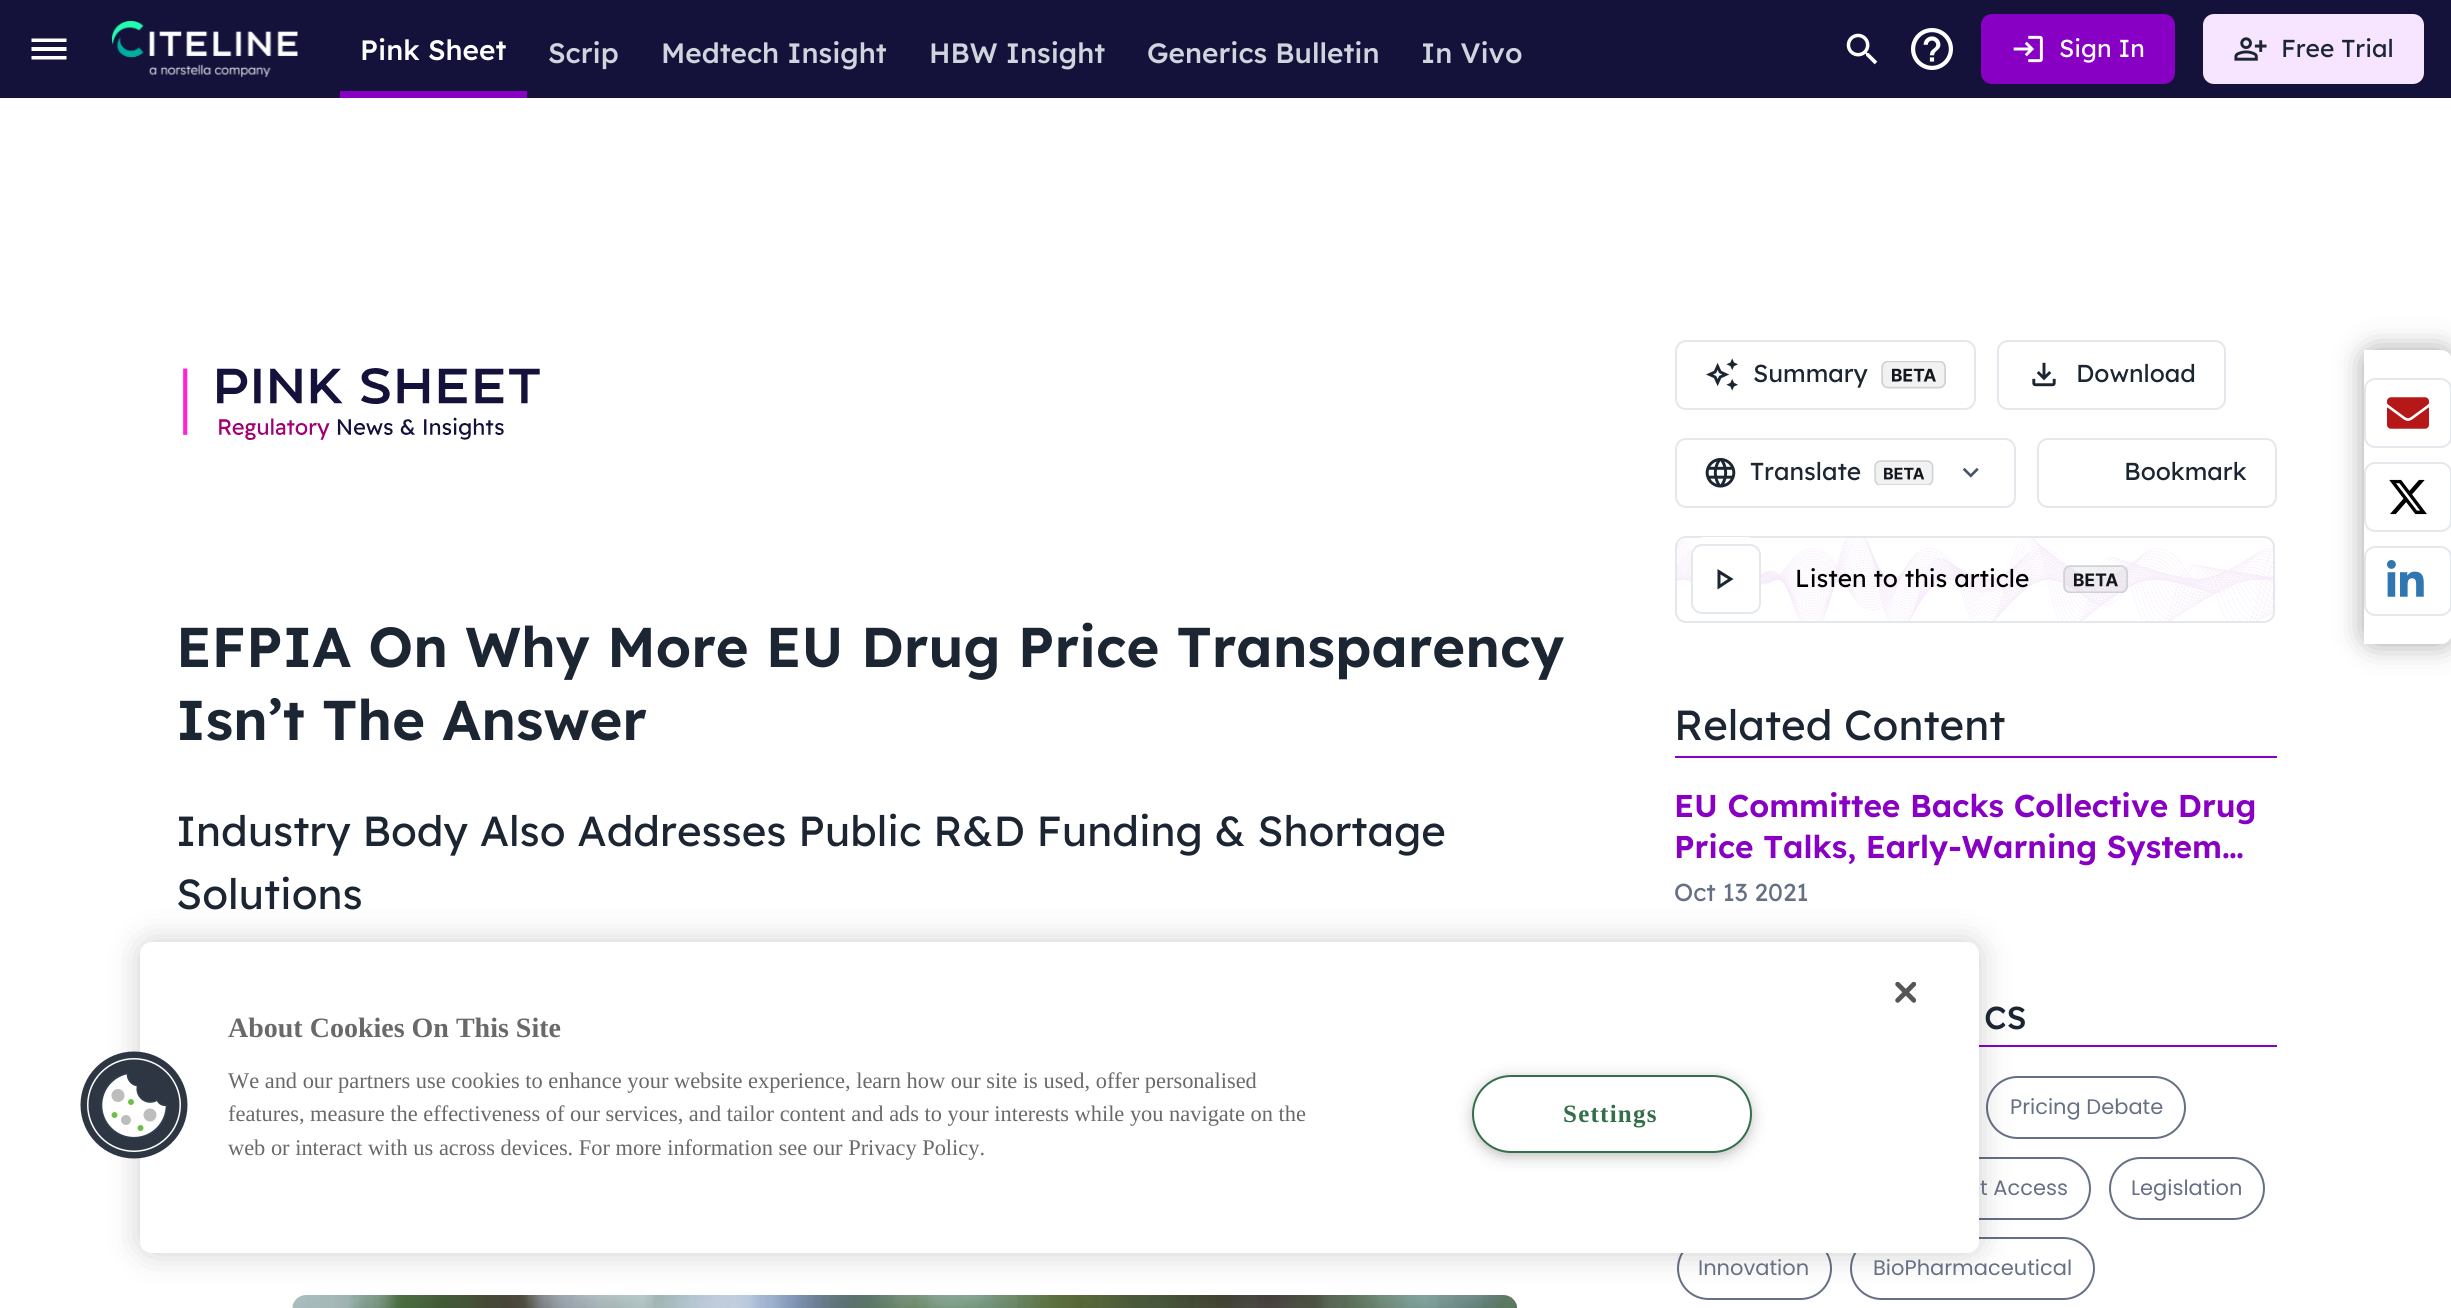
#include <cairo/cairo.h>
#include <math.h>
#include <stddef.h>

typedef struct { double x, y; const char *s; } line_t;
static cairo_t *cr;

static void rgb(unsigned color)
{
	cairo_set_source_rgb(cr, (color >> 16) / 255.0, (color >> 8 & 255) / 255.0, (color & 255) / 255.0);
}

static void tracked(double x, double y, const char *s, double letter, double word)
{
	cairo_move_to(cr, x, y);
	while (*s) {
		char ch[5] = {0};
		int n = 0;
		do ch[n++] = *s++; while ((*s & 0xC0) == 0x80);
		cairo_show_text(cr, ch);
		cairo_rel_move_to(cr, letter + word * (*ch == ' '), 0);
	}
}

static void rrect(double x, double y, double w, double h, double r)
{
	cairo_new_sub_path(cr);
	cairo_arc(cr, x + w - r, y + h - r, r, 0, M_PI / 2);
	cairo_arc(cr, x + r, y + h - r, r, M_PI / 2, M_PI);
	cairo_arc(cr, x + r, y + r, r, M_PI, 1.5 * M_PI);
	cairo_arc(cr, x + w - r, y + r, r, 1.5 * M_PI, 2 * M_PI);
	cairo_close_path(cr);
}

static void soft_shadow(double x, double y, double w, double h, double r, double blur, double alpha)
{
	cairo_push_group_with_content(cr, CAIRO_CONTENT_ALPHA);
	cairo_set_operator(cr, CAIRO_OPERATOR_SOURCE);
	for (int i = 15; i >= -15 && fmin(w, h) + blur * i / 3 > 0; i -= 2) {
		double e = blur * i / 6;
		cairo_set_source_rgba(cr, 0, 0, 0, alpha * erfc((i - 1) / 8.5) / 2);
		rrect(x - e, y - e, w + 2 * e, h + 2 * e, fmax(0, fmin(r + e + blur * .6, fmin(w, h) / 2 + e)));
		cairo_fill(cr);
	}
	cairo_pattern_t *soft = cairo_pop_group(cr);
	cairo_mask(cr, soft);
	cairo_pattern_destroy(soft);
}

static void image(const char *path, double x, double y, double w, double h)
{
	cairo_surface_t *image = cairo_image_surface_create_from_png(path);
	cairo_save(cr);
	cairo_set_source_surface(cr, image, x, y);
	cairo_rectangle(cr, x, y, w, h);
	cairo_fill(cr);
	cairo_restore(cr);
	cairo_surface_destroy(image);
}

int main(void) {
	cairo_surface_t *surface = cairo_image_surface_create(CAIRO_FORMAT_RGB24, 2451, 1308);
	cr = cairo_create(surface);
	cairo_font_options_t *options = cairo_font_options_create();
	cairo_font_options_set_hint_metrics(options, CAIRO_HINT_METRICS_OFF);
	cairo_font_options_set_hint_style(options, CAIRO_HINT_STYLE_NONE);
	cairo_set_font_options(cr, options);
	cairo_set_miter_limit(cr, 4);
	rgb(0xffffff);
	cairo_paint(cr);
	rgb(0x14123b);
	cairo_rectangle(cr, 0, 0, 2451, 98);
	cairo_fill(cr);
	rgb(0xffffff);
	cairo_new_path(cr);
	cairo_move_to(cr, 31.5, 56);
	cairo_line_to(cr, 31.5, 59.5);
	cairo_line_to(cr, 66.5, 59.5);
	cairo_line_to(cr, 66.5, 56);
	cairo_close_path(cr);
	cairo_move_to(cr, 31.5, 47);
	cairo_line_to(cr, 31.5, 51);
	cairo_line_to(cr, 66.5, 51);
	cairo_line_to(cr, 66.5, 47);
	cairo_close_path(cr);
	cairo_move_to(cr, 31.5, 38.5);
	cairo_line_to(cr, 31.5, 42);
	cairo_line_to(cr, 66.5, 42);
	cairo_line_to(cr, 66.5, 38.5);
	cairo_close_path(cr);
	cairo_fill(cr);
	image("img/1.png", 112, 21, 186, 56);
	rgb(0x8700c3);
	cairo_rectangle(cr, 340, 91, 187, 7);
	cairo_fill(cr);
	image("img/2.png", 1846, 33, 32, 32);
	image("img/3.png", 1911, 28, 42, 42);
	rrect(1981, 14, 194, 70, 11);
	cairo_fill(cr);
	image("img/4.png", 2013, 35, 30, 28);
	rgb(0xf7e4ff);
	rrect(2203, 14, 221, 70, 11);
	cairo_fill(cr);
	image("img/5.png", 2234, 37, 33, 24);
	image("img/6.png", 183, 368, 357, 72);
	image("img/7.png", 292, 1295, 1225, 13);
	rrect(1676, 341, 299, 68, 10);
	rgb(0xe4e7ec);
	cairo_stroke(cr);
	image("img/8.png", 1706, 358, 32, 33);
	image("img/9.png", 1881, 361, 65, 28);
	rrect(1998, 341, 227, 68, 10);
	cairo_stroke(cr);
	image("img/10.png", 2032, 362, 24, 25);
	rrect(1676, 439, 339, 68, 10);
	cairo_stroke(cr);
	image("img/11.png", 1705, 457, 31, 31);
	image("img/12.png", 1874, 460, 60, 25);
	image("img/13.png", 1962, 467, 17, 11);
	rrect(2038, 439, 238, 68, 10);
	cairo_stroke(cr);
	image("img/14.png", 1675, 538, 600, 83);
	rrect(1676, 537, 598, 85, 10);
	cairo_stroke(cr);
	rgb(0xffffff);
	rrect(1691, 537, 70, 84, 14);
	cairo_fill(cr);
	rrect(1692, 545, 68, 68, 10);
	rgb(0xe4e7ec);
	cairo_stroke(cr);
	rgb(0x1c2633);
	cairo_new_path(cr);
	cairo_move_to(cr, 1720.5, 574.5);
	cairo_line_to(cr, 1728, 579);
	cairo_line_to(cr, 1720.5, 584);
	cairo_close_path(cr);
	cairo_move_to(cr, 1717.5, 569);
	cairo_line_to(cr, 1717.5, 589.5);
	cairo_line_to(cr, 1733.5, 579);
	cairo_close_path(cr);
	cairo_fill(cr);
	image("img/15.png", 2063, 565, 65, 28);
	rgb(0x191919);
	soft_shadow(2364, 350, 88, 294, 11, 14, 0.4);
	rgb(0xffffff);
	cairo_new_path(cr);
	cairo_move_to(cr, 2364, 350);
	cairo_line_to(cr, 2441, 350);
	cairo_curve_to(cr, 2447, 350, 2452, 355, 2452, 361);
	cairo_line_to(cr, 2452, 633);
	cairo_curve_to(cr, 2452, 639, 2447, 644, 2441, 644);
	cairo_line_to(cr, 2364, 644);
	cairo_close_path(cr);
	cairo_fill(cr);
	rrect(2365, 379, 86, 68, 10);
	rgb(0xe4e7ec);
	cairo_stroke(cr);
	image("img/16.png", 2387, 397, 42, 32);
	rrect(2365, 463, 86, 68, 10);
	cairo_stroke(cr);
	image("img/17.png", 2389, 479, 38, 36);
	rrect(2365, 547, 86, 68, 10);
	cairo_stroke(cr);
	image("img/18.png", 2387, 560, 37, 37);
	rgb(0x8700c3);
	cairo_rectangle(cr, 1675, 756, 602, 2);
	cairo_fill(cr);
	cairo_rectangle(cr, 1979, 1045, 298, 2);
	cairo_fill(cr);
	rrect(1987, 1077, 198, 61, 30.5);
	rgb(0x667085);
	cairo_stroke(cr);
	rrect(1895, 1158, 195, 61, 30.5);
	cairo_stroke(cr);
	rrect(2110, 1158, 154, 61, 30.5);
	cairo_stroke(cr);
	rrect(1678, 1238, 153, 61, 30.5);
	cairo_stroke(cr);
	rrect(1851, 1238, 243, 61, 30.5);
	cairo_stroke(cr);
	rgb(0x000000);
	soft_shadow(140, 942, 1839, 311, 12, 16, 0.2);
	rgb(0xffffff);
	rrect(140, 942, 1839, 311, 12);
	cairo_fill(cr);
	image("img/19.png", 80, 1051, 108, 108);
	image("img/20.png", 1895, 982, 21, 21);
	rgb(0x999999);
	soft_shadow(1477, 1083, 270, 69, 34.5, 9, 1);
	rgb(0xffffff);
	rrect(1473, 1076, 278, 76, 38);
	cairo_fill_preserve(cr);
	rgb(0x346e4a);
	cairo_stroke(cr);
	cairo_select_font_face(cr, "Lexend Medium", CAIRO_FONT_SLANT_NORMAL, CAIRO_FONT_WEIGHT_NORMAL);
	cairo_set_font_size(cr, 28);
	rgb(0xffffff);
	cairo_move_to(cr, 360, 60);
	cairo_show_text(cr, "Pink Sheet");
	rgb(0xd0d5dd);
	{
		static const line_t items[] = {
			{548, 63, "Scrip"},
			{661, 63, "Medtech Insight"},
			{929, 63, "HBW Insight"},
			{1147, 63, "Generics Bulletin"},
			{1421, 63, "In Vivo"},
		};
		for (size_t i = 0; i < sizeof items / sizeof *items; i++) {
			cairo_move_to(cr, items[i].x, items[i].y);
			cairo_show_text(cr, items[i].s);
		}
	}
	cairo_select_font_face(cr, "Lexend", CAIRO_FONT_SLANT_NORMAL, CAIRO_FONT_WEIGHT_NORMAL);
	cairo_set_font_size(cr, 24.5);
	rgb(0xffffff);
	cairo_move_to(cr, 2059, 57);
	cairo_show_text(cr, "Sign In");
	rgb(0x1c2633);
	cairo_move_to(cr, 2281, 57);
	cairo_show_text(cr, "Free Trial");
	cairo_select_font_face(cr, "Lexend SemiBold", CAIRO_FONT_SLANT_NORMAL, CAIRO_FONT_WEIGHT_NORMAL);
	cairo_set_font_size(cr, 56);
	cairo_move_to(cr, 176, 667);
	cairo_show_text(cr, "EFPIA On Why More EU Drug Price Transparency");
	cairo_move_to(cr, 176, 740);
	cairo_show_text(cr, "Isn’t The Answer");
	cairo_select_font_face(cr, "Lexend", CAIRO_FONT_SLANT_NORMAL, CAIRO_FONT_WEIGHT_NORMAL);
	cairo_set_font_size(cr, 42);
	cairo_move_to(cr, 176, 846);
	cairo_show_text(cr, "Industry Body Also Addresses Public R&D Funding & Shortage");
	cairo_move_to(cr, 176, 909);
	cairo_show_text(cr, "Solutions");
	cairo_set_font_size(cr, 24.5);
	{
		static const line_t items[] = {
			{1753, 382, "Summary"},
			{2076, 382, "Download"},
			{1750, 480, "Translate"},
			{2124, 480, "Bookmark"},
		};
		for (size_t i = 0; i < sizeof items / sizeof *items; i++) {
			cairo_move_to(cr, items[i].x, items[i].y);
			cairo_show_text(cr, items[i].s);
		}
	}
	rgb(0x000000);
	cairo_move_to(cr, 1795, 587);
	cairo_show_text(cr, "Listen to this article");
	cairo_set_font_size(cr, 42);
	rgb(0x1c2633);
	cairo_move_to(cr, 1674, 740);
	cairo_show_text(cr, "Related Content");
	cairo_select_font_face(cr, "Lexend SemiBold", CAIRO_FONT_SLANT_NORMAL, CAIRO_FONT_WEIGHT_NORMAL);
	cairo_set_font_size(cr, 31.5);
	rgb(0x8700c3);
	cairo_move_to(cr, 1674, 817);
	cairo_show_text(cr, "EU Committee Backs Collective Drug");
	cairo_move_to(cr, 1674, 858);
	cairo_show_text(cr, "Price Talks, Early-Warning System…");
	cairo_select_font_face(cr, "Lexend", CAIRO_FONT_SLANT_NORMAL, CAIRO_FONT_WEIGHT_NORMAL);
	cairo_set_font_size(cr, 24.5);
	rgb(0x667085);
	cairo_move_to(cr, 1674, 901);
	cairo_show_text(cr, "Oct 13 2021");
	cairo_set_font_size(cr, 42);
	rgb(0x1c2633);
	cairo_move_to(cr, 1984, 1029);
	cairo_show_text(cr, "cs");
	cairo_select_font_face(cr, "Poppins", CAIRO_FONT_SLANT_NORMAL, CAIRO_FONT_WEIGHT_NORMAL);
	cairo_set_font_size(cr, 21);
	rgb(0x667085);
	{
		static const line_t items[] = {
			{2010, 1114, "Pricing Debate"},
			{1980, 1195, "t Access"},
			{2131, 1195, "Legislation"},
			{1698, 1275, "Innovation"},
			{1873, 1275, "BioPharmaceutical"},
		};
		for (size_t i = 0; i < sizeof items / sizeof *items; i++) {
			cairo_move_to(cr, items[i].x, items[i].y);
			cairo_show_text(cr, items[i].s);
		}
	}
	cairo_select_font_face(cr, "Liberation Serif", CAIRO_FONT_SLANT_NORMAL, CAIRO_FONT_WEIGHT_BOLD);
	cairo_set_font_size(cr, 28);
	rgb(0x696969);
	cairo_move_to(cr, 228, 1037);
	cairo_show_text(cr, "About Cookies On This Site");
	cairo_select_font_face(cr, "Liberation Serif", CAIRO_FONT_SLANT_NORMAL, CAIRO_FONT_WEIGHT_NORMAL);
	cairo_set_font_size(cr, 22.4);
	{
		static const line_t items[] = {
			{228, 1088, "We and our partners use cookies to enhance your website experience, learn how our site is used, offer personalised"},
			{228, 1121, "features, measure the effectiveness of our services, and tailor content and ads to your interests while you navigate on the"},
			{228, 1155, "web or interact with us across devices. For more information see our Privacy Policy."},
		};
		for (size_t i = 0; i < sizeof items / sizeof *items; i++) {
			cairo_move_to(cr, items[i].x, items[i].y);
			cairo_show_text(cr, items[i].s);
		}
	}
	cairo_select_font_face(cr, "Liberation Serif", CAIRO_FONT_SLANT_NORMAL, CAIRO_FONT_WEIGHT_BOLD);
	cairo_set_font_size(cr, 25);
	rgb(0x346e4a);
	tracked(1563, 1122, "Settings", 1.25, 0);
	cairo_surface_write_to_png(surface, "page.png");
	cairo_font_options_destroy(options);
	cairo_destroy(cr);
	cairo_surface_destroy(surface);
	return 0;
}
